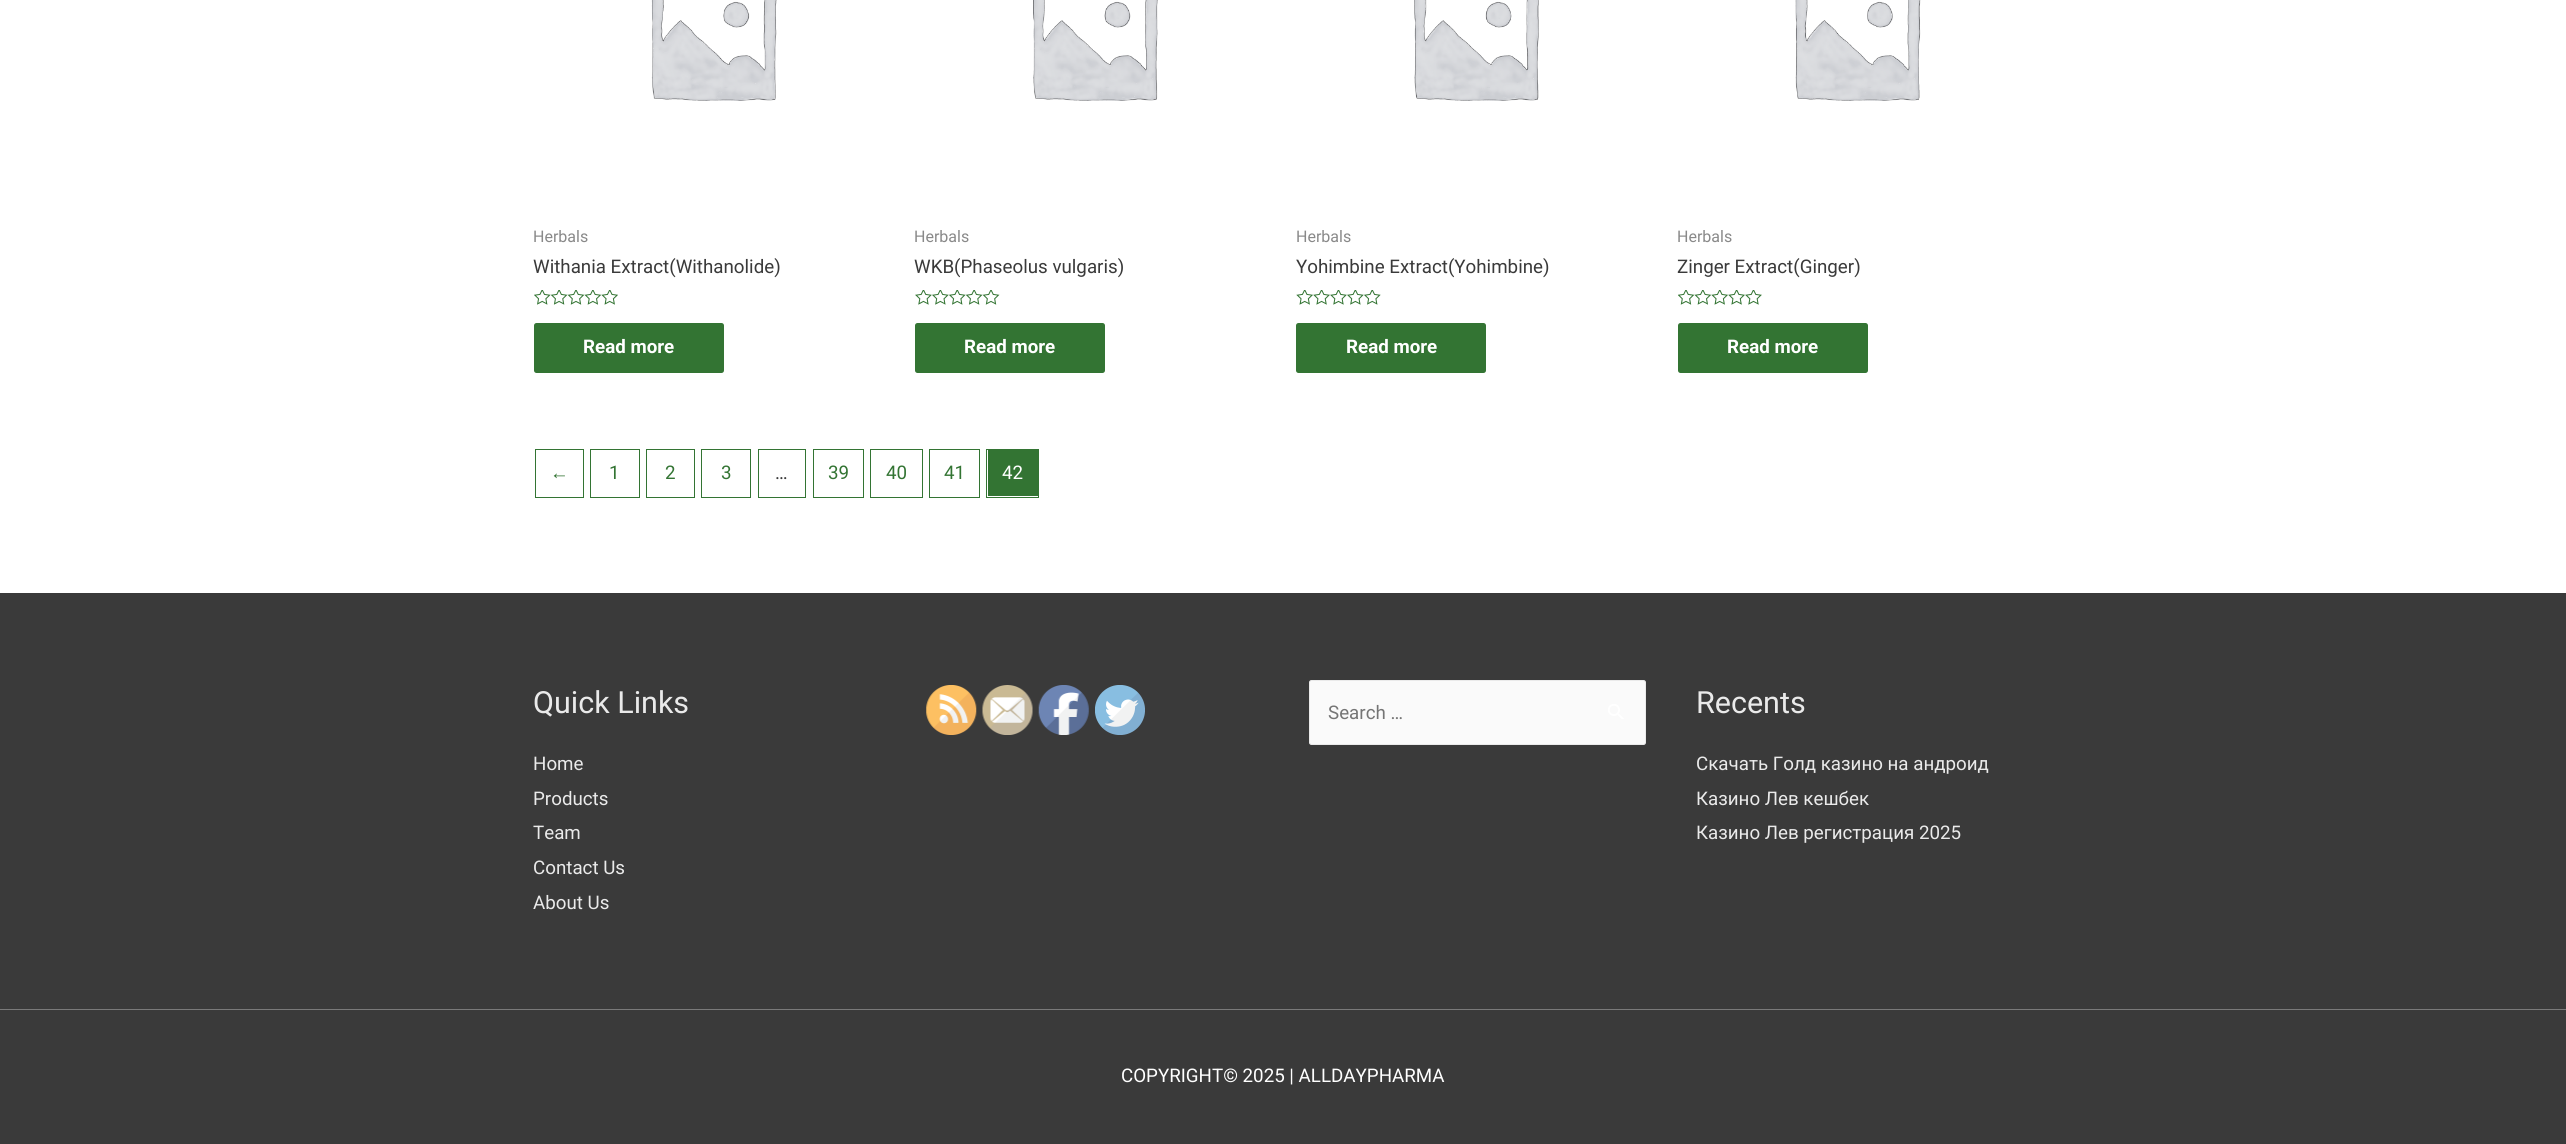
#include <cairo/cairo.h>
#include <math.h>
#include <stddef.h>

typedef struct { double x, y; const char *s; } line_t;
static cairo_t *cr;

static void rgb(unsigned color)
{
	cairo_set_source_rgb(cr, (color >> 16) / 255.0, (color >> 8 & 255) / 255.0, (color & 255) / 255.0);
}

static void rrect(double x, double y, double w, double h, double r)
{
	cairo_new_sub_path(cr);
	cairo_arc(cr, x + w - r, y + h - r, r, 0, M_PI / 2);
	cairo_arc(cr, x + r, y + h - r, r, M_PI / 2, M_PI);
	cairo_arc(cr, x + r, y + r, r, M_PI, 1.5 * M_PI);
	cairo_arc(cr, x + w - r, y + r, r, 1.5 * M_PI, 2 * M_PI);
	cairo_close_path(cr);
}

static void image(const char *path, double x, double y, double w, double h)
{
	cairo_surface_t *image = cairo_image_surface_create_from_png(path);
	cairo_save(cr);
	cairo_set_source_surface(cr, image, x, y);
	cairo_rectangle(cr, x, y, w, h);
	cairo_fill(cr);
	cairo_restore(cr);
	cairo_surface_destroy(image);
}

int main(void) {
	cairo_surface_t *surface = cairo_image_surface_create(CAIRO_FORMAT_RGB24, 2566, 1144);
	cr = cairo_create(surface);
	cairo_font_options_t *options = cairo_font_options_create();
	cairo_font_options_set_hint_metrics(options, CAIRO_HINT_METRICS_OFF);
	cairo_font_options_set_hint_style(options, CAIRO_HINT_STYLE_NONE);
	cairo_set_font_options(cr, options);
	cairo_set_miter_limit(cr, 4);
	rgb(0xffffff);
	cairo_paint(cr);
	image("img/1.png", 651, 0, 126, 101);
	image("img/2.png", 534, 290, 84, 15);
	rgb(0x337433);
	rrect(534, 323, 190, 50, 2.5);
	cairo_fill(cr);
	image("img/3.png", 1033, 0, 125, 101);
	image("img/4.png", 915, 290, 85, 15);
	rrect(915, 323, 190, 50, 2.5);
	cairo_fill(cr);
	image("img/5.png", 1414, 0, 125, 101);
	image("img/6.png", 1296, 290, 85, 15);
	rrect(1296, 323, 190, 50, 2.5);
	cairo_fill(cr);
	image("img/7.png", 1795, 0, 126, 101);
	image("img/8.png", 1678, 290, 84, 15);
	rrect(1678, 323, 190, 50, 2.5);
	cairo_fill(cr);
	cairo_rectangle(cr, 535.5, 449.5, 48, 48);
	cairo_set_line_width(cr, 1);
	cairo_stroke(cr);
	cairo_rectangle(cr, 590.5, 449.5, 49, 48);
	cairo_stroke(cr);
	cairo_rectangle(cr, 646.5, 449.5, 48, 48);
	cairo_stroke(cr);
	cairo_rectangle(cr, 701.5, 449.5, 49, 48);
	cairo_stroke(cr);
	cairo_rectangle(cr, 758.5, 449.5, 47, 48);
	cairo_stroke(cr);
	cairo_rectangle(cr, 813.5, 449.5, 50, 48);
	cairo_stroke(cr);
	cairo_rectangle(cr, 870.5, 449.5, 52, 48);
	cairo_stroke(cr);
	cairo_rectangle(cr, 929.5, 449.5, 50, 48);
	cairo_stroke(cr);
	cairo_rectangle(cr, 986.5, 449.5, 52, 48);
	cairo_stroke(cr);
	cairo_rectangle(cr, 988, 450, 50, 46);
	cairo_fill(cr);
	rgb(0x3a3a3a);
	cairo_rectangle(cr, 0, 593, 2566, 416);
	cairo_fill(cr);
	image("img/9.png", 926, 685, 51, 50);
	image("img/10.png", 982, 685, 51, 50);
	image("img/11.png", 1038, 685, 51, 50);
	image("img/12.png", 1095, 685, 50, 50);
	rgb(0xfafafa);
	rrect(1309.5, 680.5, 336, 64, 2);
	cairo_fill_preserve(cr);
	rgb(0xeaeaea);
	cairo_stroke(cr);
	image("img/13.png", 1608, 704, 16, 15);
	rgb(0x7a7a7a);
	cairo_rectangle(cr, 0, 1009, 2566, 1);
	cairo_fill(cr);
	rgb(0x3a3a3a);
	cairo_rectangle(cr, 0, 1010, 2566, 134);
	cairo_fill(cr);
	cairo_select_font_face(cr, "Roboto", CAIRO_FONT_SLANT_NORMAL, CAIRO_FONT_WEIGHT_NORMAL);
	cairo_set_font_size(cr, 16);
	rgb(0x898989);
	cairo_move_to(cr, 533, 242);
	cairo_show_text(cr, "Herbals");
	cairo_set_font_size(cr, 18.75);
	rgb(0x3a3a3a);
	cairo_move_to(cr, 533, 273);
	cairo_show_text(cr, "Withania Extract(Withanolide)");
	cairo_select_font_face(cr, "Roboto", CAIRO_FONT_SLANT_NORMAL, CAIRO_FONT_WEIGHT_BOLD);
	rgb(0xffffff);
	cairo_move_to(cr, 583, 353);
	cairo_show_text(cr, "Read more");
	cairo_select_font_face(cr, "Roboto", CAIRO_FONT_SLANT_NORMAL, CAIRO_FONT_WEIGHT_NORMAL);
	cairo_set_font_size(cr, 16);
	rgb(0x898989);
	cairo_move_to(cr, 914, 242);
	cairo_show_text(cr, "Herbals");
	cairo_set_font_size(cr, 18.75);
	rgb(0x3a3a3a);
	cairo_move_to(cr, 914, 273);
	cairo_show_text(cr, "WKB(Phaseolus vulgaris)");
	cairo_select_font_face(cr, "Roboto", CAIRO_FONT_SLANT_NORMAL, CAIRO_FONT_WEIGHT_BOLD);
	rgb(0xffffff);
	cairo_move_to(cr, 964, 353);
	cairo_show_text(cr, "Read more");
	cairo_select_font_face(cr, "Roboto", CAIRO_FONT_SLANT_NORMAL, CAIRO_FONT_WEIGHT_NORMAL);
	cairo_set_font_size(cr, 16);
	rgb(0x898989);
	cairo_move_to(cr, 1296, 242);
	cairo_show_text(cr, "Herbals");
	cairo_set_font_size(cr, 18.75);
	rgb(0x3a3a3a);
	cairo_move_to(cr, 1296, 273);
	cairo_show_text(cr, "Yohimbine Extract(Yohimbine)");
	cairo_select_font_face(cr, "Roboto", CAIRO_FONT_SLANT_NORMAL, CAIRO_FONT_WEIGHT_BOLD);
	rgb(0xffffff);
	cairo_move_to(cr, 1346, 353);
	cairo_show_text(cr, "Read more");
	cairo_select_font_face(cr, "Roboto", CAIRO_FONT_SLANT_NORMAL, CAIRO_FONT_WEIGHT_NORMAL);
	cairo_set_font_size(cr, 16);
	rgb(0x898989);
	cairo_move_to(cr, 1677, 242);
	cairo_show_text(cr, "Herbals");
	cairo_set_font_size(cr, 18.75);
	rgb(0x3a3a3a);
	cairo_move_to(cr, 1677, 273);
	cairo_show_text(cr, "Zinger Extract(Ginger)");
	cairo_select_font_face(cr, "Roboto", CAIRO_FONT_SLANT_NORMAL, CAIRO_FONT_WEIGHT_BOLD);
	rgb(0xffffff);
	cairo_move_to(cr, 1727, 353);
	cairo_show_text(cr, "Read more");
	cairo_select_font_face(cr, "Liberation Sans", CAIRO_FONT_SLANT_NORMAL, CAIRO_FONT_WEIGHT_NORMAL);
	rgb(0x337433);
	cairo_move_to(cr, 550, 479);
	cairo_show_text(cr, "←");
	cairo_select_font_face(cr, "Roboto", CAIRO_FONT_SLANT_NORMAL, CAIRO_FONT_WEIGHT_NORMAL);
	{
		static const line_t items[] = {
			{609, 479, "1"},
			{665, 479, "2"},
			{721, 479, "3"},
		};
		for (size_t i = 0; i < sizeof items / sizeof *items; i++) {
			cairo_move_to(cr, items[i].x, items[i].y);
			cairo_show_text(cr, items[i].s);
		}
	}
	rgb(0x3a3a3a);
	cairo_move_to(cr, 775, 479);
	cairo_show_text(cr, "…");
	rgb(0x337433);
	{
		static const line_t items[] = {
			{828, 479, "39"},
			{886, 479, "40"},
			{944, 479, "41"},
		};
		for (size_t i = 0; i < sizeof items / sizeof *items; i++) {
			cairo_move_to(cr, items[i].x, items[i].y);
			cairo_show_text(cr, items[i].s);
		}
	}
	rgb(0xffffff);
	cairo_move_to(cr, 1002, 479);
	cairo_show_text(cr, "42");
	cairo_set_font_size(cr, 30.5);
	rgb(0xeaeaea);
	cairo_move_to(cr, 533, 713);
	cairo_show_text(cr, "Quick Links");
	cairo_set_font_size(cr, 18.75);
	{
		static const line_t items[] = {
			{533, 770, "Home"},
			{533, 805, "Products"},
			{533, 839, "Team"},
			{533, 874, "Contact Us"},
			{533, 909, "About Us"},
		};
		for (size_t i = 0; i < sizeof items / sizeof *items; i++) {
			cairo_move_to(cr, items[i].x, items[i].y);
			cairo_show_text(cr, items[i].s);
		}
	}
	rgb(0x757575);
	cairo_move_to(cr, 1328, 719);
	cairo_show_text(cr, "Search …");
	cairo_set_font_size(cr, 30.5);
	rgb(0xeaeaea);
	cairo_move_to(cr, 1696, 713);
	cairo_show_text(cr, "Recents");
	cairo_set_font_size(cr, 18.75);
	{
		static const line_t items[] = {
			{1696, 770, "Скачать Голд казино на андроид"},
			{1696, 805, "Казино Лев кешбек"},
			{1696, 839, "Казино Лев регистрация 2025"},
		};
		for (size_t i = 0; i < sizeof items / sizeof *items; i++) {
			cairo_move_to(cr, items[i].x, items[i].y);
			cairo_show_text(cr, items[i].s);
		}
	}
	rgb(0xffffff);
	cairo_move_to(cr, 1121, 1082);
	cairo_show_text(cr, "COPYRIGHT© 2025 | ALLDAYPHARMA");
	cairo_surface_write_to_png(surface, "page.png");
	cairo_font_options_destroy(options);
	cairo_destroy(cr);
	cairo_surface_destroy(surface);
	return 0;
}
